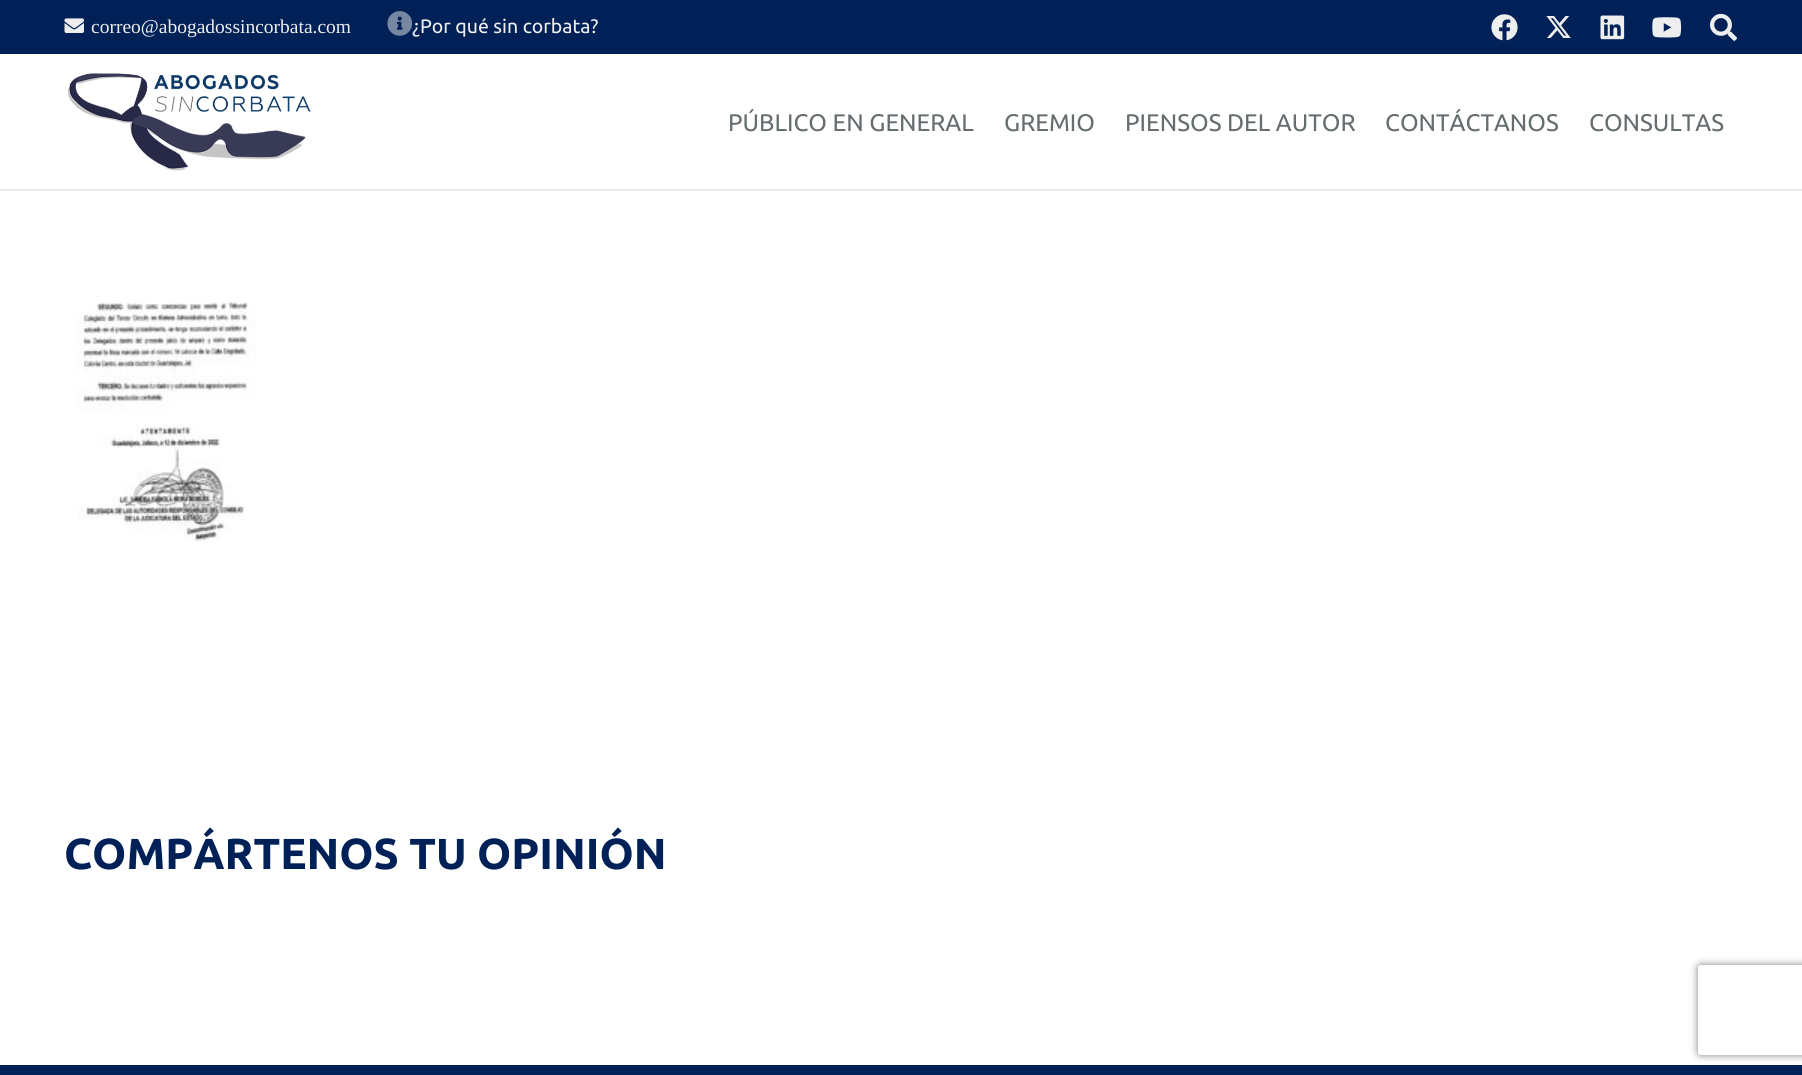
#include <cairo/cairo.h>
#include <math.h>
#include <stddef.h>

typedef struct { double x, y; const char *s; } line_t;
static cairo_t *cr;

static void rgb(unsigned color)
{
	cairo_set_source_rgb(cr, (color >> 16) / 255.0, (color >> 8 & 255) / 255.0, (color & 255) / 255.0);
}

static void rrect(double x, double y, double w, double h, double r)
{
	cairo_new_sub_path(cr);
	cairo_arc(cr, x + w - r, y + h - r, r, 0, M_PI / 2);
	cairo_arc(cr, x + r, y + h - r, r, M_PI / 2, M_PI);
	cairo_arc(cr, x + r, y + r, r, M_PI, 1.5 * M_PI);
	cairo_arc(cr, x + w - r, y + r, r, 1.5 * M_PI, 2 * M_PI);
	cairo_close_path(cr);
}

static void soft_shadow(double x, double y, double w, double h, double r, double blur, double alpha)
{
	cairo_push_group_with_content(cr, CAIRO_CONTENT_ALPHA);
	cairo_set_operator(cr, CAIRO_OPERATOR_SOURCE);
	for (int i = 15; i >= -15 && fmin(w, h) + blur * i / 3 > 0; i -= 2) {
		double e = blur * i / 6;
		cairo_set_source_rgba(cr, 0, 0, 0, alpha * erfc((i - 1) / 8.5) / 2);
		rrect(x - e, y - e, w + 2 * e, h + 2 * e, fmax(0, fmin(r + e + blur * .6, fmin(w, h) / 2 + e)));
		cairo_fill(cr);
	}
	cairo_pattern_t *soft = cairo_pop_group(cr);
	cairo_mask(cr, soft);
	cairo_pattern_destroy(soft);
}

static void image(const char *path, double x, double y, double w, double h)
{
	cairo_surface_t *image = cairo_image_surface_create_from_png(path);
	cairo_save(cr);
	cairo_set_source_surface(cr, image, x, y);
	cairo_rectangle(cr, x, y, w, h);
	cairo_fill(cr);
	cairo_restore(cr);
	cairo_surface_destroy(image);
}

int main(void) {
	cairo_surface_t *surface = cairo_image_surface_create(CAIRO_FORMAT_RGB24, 1802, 1075);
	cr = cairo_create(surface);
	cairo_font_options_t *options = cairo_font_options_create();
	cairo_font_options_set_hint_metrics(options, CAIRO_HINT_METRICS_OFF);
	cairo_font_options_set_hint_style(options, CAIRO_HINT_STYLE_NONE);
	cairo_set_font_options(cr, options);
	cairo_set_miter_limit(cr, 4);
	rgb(0xffffff);
	cairo_paint(cr);
	rgb(0x002157);
	cairo_rectangle(cr, 0, 0, 1802, 54);
	cairo_fill(cr);
	image("img/1.png", 64, 18, 20, 15);
	image("img/3.png", 1491, 14, 27, 27);
	image("img/4.png", 1546, 16, 25, 22);
	image("img/5.png", 1600, 15, 25, 25);
	image("img/6.png", 1652, 17, 30, 21);
	image("img/7.png", 1710, 13, 27, 28);
	rgb(0xebebeb);
	cairo_rectangle(cr, 0, 189, 1802, 2);
	cairo_fill(cr);
	image("img/8.png", 67, 73, 244, 98);
	image("img/9.png", 77, 301, 179, 242);
	rgb(0x002157);
	cairo_rectangle(cr, 0, 1065, 1802, 10);
	cairo_fill(cr);
	cairo_save(cr);
	cairo_set_fill_rule(cr, CAIRO_FILL_RULE_EVEN_ODD);
	cairo_new_path(cr);
	cairo_move_to(cr, 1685, 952);
	cairo_line_to(cr, 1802, 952);
	cairo_line_to(cr, 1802, 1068);
	cairo_line_to(cr, 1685, 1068);
	cairo_close_path(cr);
	cairo_move_to(cr, 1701, 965);
	cairo_line_to(cr, 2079, 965);
	cairo_curve_to(cr, 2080.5, 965, 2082, 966.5, 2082, 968);
	cairo_line_to(cr, 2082, 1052);
	cairo_curve_to(cr, 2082, 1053.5, 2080.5, 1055, 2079, 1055);
	cairo_line_to(cr, 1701, 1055);
	cairo_curve_to(cr, 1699.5, 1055, 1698, 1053.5, 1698, 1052);
	cairo_line_to(cr, 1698, 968);
	cairo_curve_to(cr, 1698, 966.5, 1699.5, 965, 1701, 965);
	cairo_close_path(cr);
	cairo_clip(cr);
	rgb(0x808080);
	soft_shadow(1698, 965, 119, 90, 3, 4, 1);
	cairo_restore(cr);
	cairo_select_font_face(cr, "Liberation Serif", CAIRO_FONT_SLANT_NORMAL, CAIRO_FONT_WEIGHT_NORMAL);
	cairo_set_font_size(cr, 19.5);
	rgb(0xeeeeee);
	cairo_move_to(cr, 91, 33);
	cairo_show_text(cr, "correo@abogadossincorbata.com");
	cairo_select_font_face(cr, "Ubuntu", CAIRO_FONT_SLANT_NORMAL, CAIRO_FONT_WEIGHT_NORMAL);
	cairo_move_to(cr, 412, 33);
	cairo_show_text(cr, "¿Por qué sin corbata?");
	image("img/2.png", 387, 11, 26, 25);
	cairo_set_font_size(cr, 24);
	rgb(0x666d70);
	{
		static const line_t items[] = {
			{728, 131, "PÚBLICO EN GENERAL"},
			{1004, 131, "GREMIO"},
			{1125, 131, "PIENSOS DEL AUTOR"},
			{1385, 131, "CONTÁCTANOS"},
			{1589, 131, "CONSULTAS"},
		};
		for (size_t i = 0; i < sizeof items / sizeof *items; i++) {
			cairo_move_to(cr, items[i].x, items[i].y);
			cairo_show_text(cr, items[i].s);
		}
	}
	cairo_select_font_face(cr, "Ubuntu", CAIRO_FONT_SLANT_NORMAL, CAIRO_FONT_WEIGHT_BOLD);
	cairo_set_font_size(cr, 43.4);
	rgb(0x002157);
	cairo_move_to(cr, 64, 869);
	cairo_show_text(cr, "COMPÁRTENOS TU OPINIÓN");
	cairo_surface_write_to_png(surface, "page.png");
	cairo_font_options_destroy(options);
	cairo_destroy(cr);
	cairo_surface_destroy(surface);
	return 0;
}
